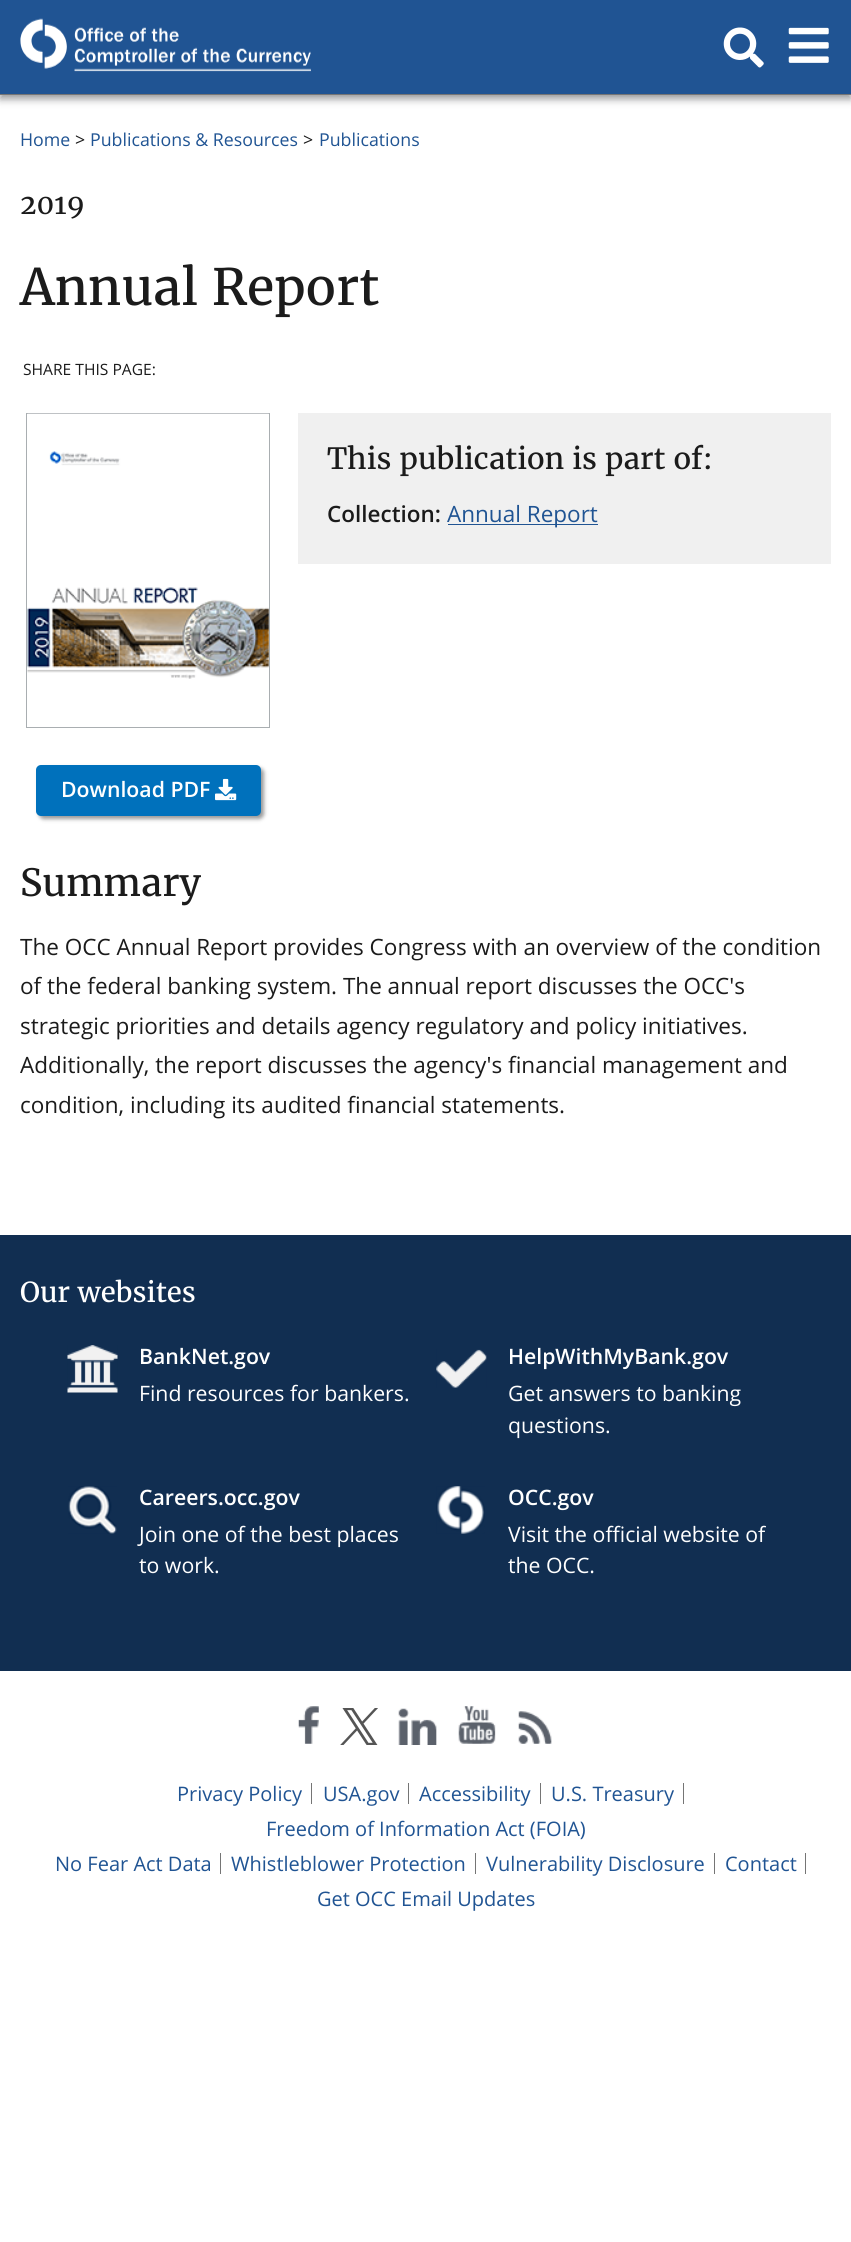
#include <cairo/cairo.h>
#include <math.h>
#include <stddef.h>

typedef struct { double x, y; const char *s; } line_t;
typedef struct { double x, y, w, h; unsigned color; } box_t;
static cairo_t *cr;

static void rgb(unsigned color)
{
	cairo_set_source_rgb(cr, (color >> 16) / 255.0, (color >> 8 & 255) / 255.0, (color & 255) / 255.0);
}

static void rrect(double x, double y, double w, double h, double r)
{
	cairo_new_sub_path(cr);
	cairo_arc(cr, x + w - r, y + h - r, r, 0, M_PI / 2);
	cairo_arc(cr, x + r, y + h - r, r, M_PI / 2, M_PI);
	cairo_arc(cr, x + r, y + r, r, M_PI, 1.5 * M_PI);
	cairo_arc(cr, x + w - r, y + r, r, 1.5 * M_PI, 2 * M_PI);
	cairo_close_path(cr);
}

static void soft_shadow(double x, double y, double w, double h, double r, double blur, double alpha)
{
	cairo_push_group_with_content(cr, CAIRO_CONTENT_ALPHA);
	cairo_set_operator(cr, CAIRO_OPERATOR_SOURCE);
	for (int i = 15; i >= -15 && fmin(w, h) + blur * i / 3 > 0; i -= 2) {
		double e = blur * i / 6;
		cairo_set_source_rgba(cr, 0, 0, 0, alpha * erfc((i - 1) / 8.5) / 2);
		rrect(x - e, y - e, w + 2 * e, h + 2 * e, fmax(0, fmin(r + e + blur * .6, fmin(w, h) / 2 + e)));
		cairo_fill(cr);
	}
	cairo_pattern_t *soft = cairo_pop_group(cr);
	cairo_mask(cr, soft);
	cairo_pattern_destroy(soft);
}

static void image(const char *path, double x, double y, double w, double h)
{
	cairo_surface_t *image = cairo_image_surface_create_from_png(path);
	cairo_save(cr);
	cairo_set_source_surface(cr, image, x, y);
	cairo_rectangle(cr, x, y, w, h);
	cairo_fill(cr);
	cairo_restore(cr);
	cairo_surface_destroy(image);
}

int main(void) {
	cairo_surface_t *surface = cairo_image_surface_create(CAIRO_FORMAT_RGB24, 851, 2242);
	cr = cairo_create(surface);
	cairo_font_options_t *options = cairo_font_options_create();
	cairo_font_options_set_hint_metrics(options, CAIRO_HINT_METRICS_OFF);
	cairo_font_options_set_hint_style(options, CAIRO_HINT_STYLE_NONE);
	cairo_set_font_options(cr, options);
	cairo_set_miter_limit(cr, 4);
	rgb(0xffffff);
	cairo_paint(cr);
	rgb(0x98999b);
	soft_shadow(0, 4, 851, 95, 0, 4, 1);
	rgb(0x205493);
	cairo_rectangle(cr, 0, 0, 851, 94);
	cairo_fill(cr);
	rgb(0x757575);
	cairo_rectangle(cr, 0, 94, 851, 1);
	cairo_fill(cr);
	image("img/1.png", 20, 18, 291, 54);
	image("img/2.png", 723, 27, 41, 41);
	image("img/3.png", 788, 27, 41, 36);
	rgb(0xf0f0f0);
	cairo_rectangle(cr, 298, 413, 533, 151);
	cairo_fill(cr);
	rgb(0x205493);
	cairo_rectangle(cr, 448, 524, 150, 1);
	cairo_fill(cr);
	cairo_rectangle(cr, 26.5, 413.5, 243, 314);
	rgb(0xa9aeb1);
	cairo_set_line_width(cr, 1);
	cairo_stroke(cr);
	image("img/4.png", 27, 413, 242, 266);
	rgb(0x000000);
	soft_shadow(39, 768, 225, 51, 5, 2, 0.4);
	rgb(0x0071bc);
	rrect(36, 765, 225, 51, 5);
	cairo_fill(cr);
	image("img/5.png", 215, 778, 22, 23);
	rgb(0x112e51);
	cairo_rectangle(cr, 0, 1235, 851, 436);
	cairo_fill(cr);
	image("img/6.png", 67, 1345, 51, 48);
	image("img/7.png", 436, 1349, 51, 39);
	image("img/8.png", 68, 1486, 49, 48);
	image("img/9.png", 436, 1486, 49, 48);
	image("img/10.png", 298, 1706, 21, 38);
	image("img/11.png", 340, 1708, 38, 37);
	image("img/12.png", 398, 1708, 39, 37);
	image("img/13.png", 458, 1706, 38, 38);
	image("img/14.png", 518, 1711, 34, 33);
	{
		static const box_t items[] = {
			{311, 1783, 1, 21, 0x757575},
			{408, 1783, 1, 21, 0x757575},
			{540, 1783, 1, 21, 0x757575},
			{683, 1783, 1, 21, 0x757575},
			{220, 1853, 1, 21, 0x757575},
			{475, 1853, 1, 21, 0x757575},
			{714, 1853, 1, 21, 0x757575},
			{805, 1853, 1, 21, 0x757575},
		};
		for (size_t i = 0; i < sizeof items / sizeof *items; i++) {
			rgb(items[i].color);
			cairo_rectangle(cr, items[i].x, items[i].y, items[i].w, items[i].h);
			cairo_fill(cr);
		}
	}
	cairo_select_font_face(cr, "Open Sans", CAIRO_FONT_SLANT_NORMAL, CAIRO_FONT_WEIGHT_NORMAL);
	cairo_set_font_size(cr, 17.75);
	rgb(0x205493);
	cairo_move_to(cr, 20, 146);
	cairo_show_text(cr, "Home");
	rgb(0x1b1b1b);
	cairo_move_to(cr, 75, 146);
	cairo_show_text(cr, ">");
	rgb(0x205493);
	cairo_move_to(cr, 90, 146);
	cairo_show_text(cr, "Publications & Resources");
	rgb(0x1b1b1b);
	cairo_move_to(cr, 303, 146);
	cairo_show_text(cr, ">");
	rgb(0x205493);
	cairo_move_to(cr, 319, 146);
	cairo_show_text(cr, "Publications");
	cairo_select_font_face(cr, "Merriweather", CAIRO_FONT_SLANT_NORMAL, CAIRO_FONT_WEIGHT_NORMAL);
	cairo_set_font_size(cr, 27.5);
	rgb(0x1b1b1b);
	cairo_move_to(cr, 20, 214);
	cairo_show_text(cr, "2019");
	cairo_set_font_size(cr, 50);
	cairo_move_to(cr, 20, 305);
	cairo_show_text(cr, "Annual Report");
	cairo_select_font_face(cr, "Open Sans", CAIRO_FONT_SLANT_NORMAL, CAIRO_FONT_WEIGHT_NORMAL);
	cairo_set_font_size(cr, 15.6);
	cairo_move_to(cr, 23, 375);
	cairo_show_text(cr, "SHARE THIS PAGE:");
	cairo_select_font_face(cr, "Merriweather", CAIRO_FONT_SLANT_NORMAL, CAIRO_FONT_WEIGHT_NORMAL);
	cairo_set_font_size(cr, 29.25);
	cairo_move_to(cr, 327, 469);
	cairo_show_text(cr, "This publication is part of:");
	cairo_select_font_face(cr, "Open Sans SemiBold", CAIRO_FONT_SLANT_NORMAL, CAIRO_FONT_WEIGHT_NORMAL);
	cairo_set_font_size(cr, 22.5);
	cairo_move_to(cr, 327, 522);
	cairo_show_text(cr, "Collection:");
	cairo_select_font_face(cr, "Open Sans", CAIRO_FONT_SLANT_NORMAL, CAIRO_FONT_WEIGHT_NORMAL);
	rgb(0x205493);
	cairo_move_to(cr, 447, 522);
	cairo_show_text(cr, "Annual Report");
	cairo_select_font_face(cr, "Open Sans SemiBold", CAIRO_FONT_SLANT_NORMAL, CAIRO_FONT_WEIGHT_NORMAL);
	cairo_set_font_size(cr, 21.25);
	rgb(0xffffff);
	cairo_move_to(cr, 61, 797);
	cairo_show_text(cr, "Download PDF");
	cairo_select_font_face(cr, "Merriweather", CAIRO_FONT_SLANT_NORMAL, CAIRO_FONT_WEIGHT_NORMAL);
	cairo_set_font_size(cr, 37.5);
	rgb(0x1b1b1b);
	cairo_move_to(cr, 20, 896);
	cairo_show_text(cr, "Summary");
	cairo_select_font_face(cr, "Open Sans", CAIRO_FONT_SLANT_NORMAL, CAIRO_FONT_WEIGHT_NORMAL);
	cairo_set_font_size(cr, 22.5);
	{
		static const line_t items[] = {
			{20, 955, "The OCC Annual Report provides Congress with an overview of the condition"},
			{20, 994, "of the federal banking system. The annual report discusses the OCC's"},
			{20, 1034, "strategic priorities and details agency regulatory and policy initiatives."},
			{20, 1073, "Additionally, the report discusses the agency's financial management and"},
			{20, 1113, "condition, including its audited financial statements."},
		};
		for (size_t i = 0; i < sizeof items / sizeof *items; i++) {
			cairo_move_to(cr, items[i].x, items[i].y);
			cairo_show_text(cr, items[i].s);
		}
	}
	cairo_select_font_face(cr, "Merriweather", CAIRO_FONT_SLANT_NORMAL, CAIRO_FONT_WEIGHT_NORMAL);
	cairo_set_font_size(cr, 27.5);
	rgb(0xffffff);
	cairo_move_to(cr, 20, 1302);
	cairo_show_text(cr, "Our websites");
	cairo_select_font_face(cr, "Open Sans SemiBold", CAIRO_FONT_SLANT_NORMAL, CAIRO_FONT_WEIGHT_NORMAL);
	cairo_set_font_size(cr, 21.25);
	cairo_move_to(cr, 139, 1364);
	cairo_show_text(cr, "BankNet.gov");
	cairo_select_font_face(cr, "Open Sans", CAIRO_FONT_SLANT_NORMAL, CAIRO_FONT_WEIGHT_NORMAL);
	cairo_move_to(cr, 139, 1401);
	cairo_show_text(cr, "Find resources for bankers.");
	cairo_select_font_face(cr, "Open Sans SemiBold", CAIRO_FONT_SLANT_NORMAL, CAIRO_FONT_WEIGHT_NORMAL);
	cairo_move_to(cr, 508, 1364);
	cairo_show_text(cr, "HelpWithMyBank.gov");
	cairo_select_font_face(cr, "Open Sans", CAIRO_FONT_SLANT_NORMAL, CAIRO_FONT_WEIGHT_NORMAL);
	cairo_move_to(cr, 508, 1401);
	cairo_show_text(cr, "Get answers to banking");
	cairo_move_to(cr, 508, 1433);
	cairo_show_text(cr, "questions.");
	cairo_select_font_face(cr, "Open Sans SemiBold", CAIRO_FONT_SLANT_NORMAL, CAIRO_FONT_WEIGHT_NORMAL);
	cairo_move_to(cr, 139, 1505);
	cairo_show_text(cr, "Careers.occ.gov");
	cairo_select_font_face(cr, "Open Sans", CAIRO_FONT_SLANT_NORMAL, CAIRO_FONT_WEIGHT_NORMAL);
	cairo_move_to(cr, 139, 1542);
	cairo_show_text(cr, "Join one of the best places");
	cairo_move_to(cr, 139, 1573);
	cairo_show_text(cr, "to work.");
	cairo_select_font_face(cr, "Open Sans SemiBold", CAIRO_FONT_SLANT_NORMAL, CAIRO_FONT_WEIGHT_NORMAL);
	cairo_move_to(cr, 508, 1505);
	cairo_show_text(cr, "OCC.gov");
	cairo_select_font_face(cr, "Open Sans", CAIRO_FONT_SLANT_NORMAL, CAIRO_FONT_WEIGHT_NORMAL);
	cairo_move_to(cr, 508, 1542);
	cairo_show_text(cr, "Visit the official website of");
	cairo_move_to(cr, 508, 1573);
	cairo_show_text(cr, "the OCC.");
	cairo_set_font_size(cr, 20);
	rgb(0x205493);
	{
		static const line_t items[] = {
			{177, 1801, "Privacy Policy"},
			{323, 1801, "USA.gov"},
			{419, 1801, "Accessibility"},
			{551, 1801, "U.S. Treasury"},
			{266, 1836, "Freedom of Information Act (FOIA)"},
			{55, 1871, "No Fear Act Data"},
			{231, 1871, "Whistleblower Protection"},
			{486, 1871, "Vulnerability Disclosure"},
			{725, 1871, "Contact"},
			{317, 1906, "Get OCC Email Updates"},
		};
		for (size_t i = 0; i < sizeof items / sizeof *items; i++) {
			cairo_move_to(cr, items[i].x, items[i].y);
			cairo_show_text(cr, items[i].s);
		}
	}
	cairo_surface_write_to_png(surface, "page.png");
	cairo_font_options_destroy(options);
	cairo_destroy(cr);
	cairo_surface_destroy(surface);
	return 0;
}
